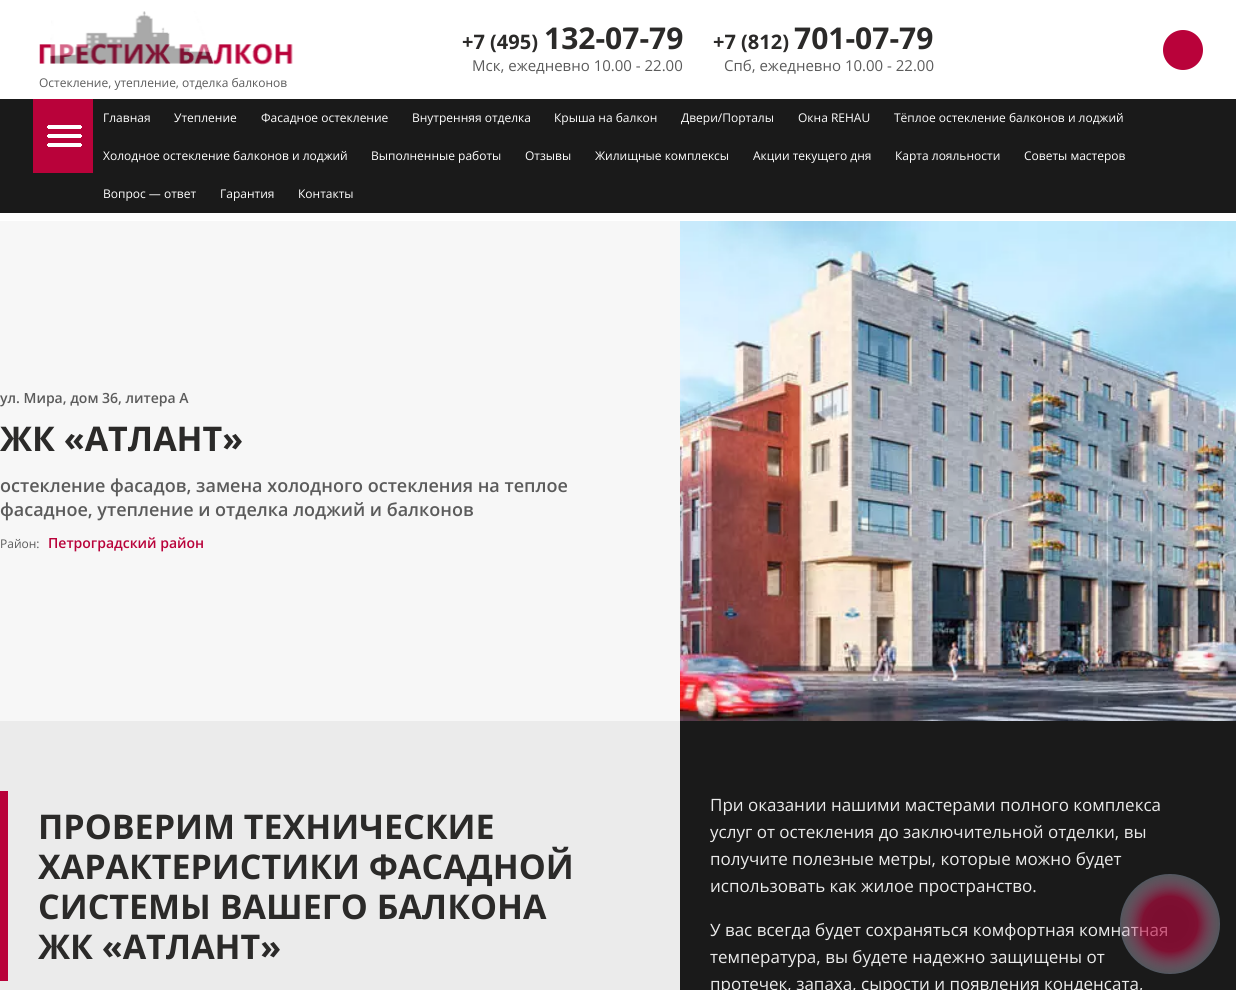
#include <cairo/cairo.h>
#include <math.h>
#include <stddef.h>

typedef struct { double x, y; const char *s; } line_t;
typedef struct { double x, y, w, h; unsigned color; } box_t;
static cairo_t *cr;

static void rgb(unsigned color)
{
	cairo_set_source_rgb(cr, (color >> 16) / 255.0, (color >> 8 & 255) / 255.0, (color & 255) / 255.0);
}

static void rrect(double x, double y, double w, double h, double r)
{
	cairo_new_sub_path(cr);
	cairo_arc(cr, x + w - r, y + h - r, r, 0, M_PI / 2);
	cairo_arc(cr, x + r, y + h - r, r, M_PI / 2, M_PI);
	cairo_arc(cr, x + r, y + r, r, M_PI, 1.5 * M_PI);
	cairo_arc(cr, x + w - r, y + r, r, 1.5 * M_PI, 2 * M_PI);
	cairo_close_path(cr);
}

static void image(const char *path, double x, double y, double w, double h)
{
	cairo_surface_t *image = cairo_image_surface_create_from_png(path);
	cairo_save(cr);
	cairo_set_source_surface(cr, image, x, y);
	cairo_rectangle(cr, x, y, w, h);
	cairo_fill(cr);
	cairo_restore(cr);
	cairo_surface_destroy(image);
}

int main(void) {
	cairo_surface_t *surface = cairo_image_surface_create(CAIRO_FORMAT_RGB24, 1236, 990);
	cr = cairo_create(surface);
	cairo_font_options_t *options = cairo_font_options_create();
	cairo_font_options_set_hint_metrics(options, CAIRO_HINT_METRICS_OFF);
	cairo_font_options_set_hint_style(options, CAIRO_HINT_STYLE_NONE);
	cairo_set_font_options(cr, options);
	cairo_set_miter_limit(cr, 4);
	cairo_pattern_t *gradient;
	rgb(0xffffff);
	cairo_paint(cr);
	rgb(0xb9023a);
	cairo_arc(cr, 1183, 50, 20, 0, 2 * M_PI);
	cairo_fill(cr);
	image("img/1.png", 39, 11, 254, 54);
	{
		static const box_t items[] = {
			{0, 99, 1236, 114, 0x1a1a1a},
			{33, 99, 60, 74, 0xb9023a},
			{48, 125, 33, 4, 0xffffff},
			{47, 126, 35, 2, 0xffffff},
			{48, 134, 33, 4, 0xffffff},
			{47, 135, 35, 2, 0xffffff},
			{48, 143, 33, 4, 0xffffff},
			{47, 144, 35, 2, 0xffffff},
			{0, 221, 680, 500, 0xf7f7f7},
		};
		for (size_t i = 0; i < sizeof items / sizeof *items; i++) {
			rgb(items[i].color);
			cairo_rectangle(cr, items[i].x, items[i].y, items[i].w, items[i].h);
			cairo_fill(cr);
		}
	}
	image("img/2.png", 680, 221, 556, 500);
	{
		static const box_t items[] = {
			{0, 721, 680, 269, 0xebebeb},
			{0, 791, 8, 190, 0xb9023a},
			{680, 721, 556, 269, 0x1a1a1a},
		};
		for (size_t i = 0; i < sizeof items / sizeof *items; i++) {
			rgb(items[i].color);
			cairo_rectangle(cr, items[i].x, items[i].y, items[i].w, items[i].h);
			cairo_fill(cr);
		}
	}
	cairo_save(cr);
	rrect(1120, 874, 100, 100, 50);
	cairo_clip(cr);
	gradient = cairo_pattern_create_radial(1170, 826, 0, 1170, 826, 69);
	cairo_pattern_add_color_stop_rgba(gradient, 0.25, 0.129, 0.129, 0.129, 1);
	cairo_pattern_add_color_stop_rgba(gradient, 0.75, 0.192, 0.192, 0.192, 1);
	cairo_set_source(cr, gradient);
	cairo_pattern_destroy(gradient);
	cairo_rectangle(cr, 1160, 874, 20, 1);
	cairo_fill(cr);
	gradient = cairo_pattern_create_radial(1170, 924, 0, 1170, 924, 69);
	cairo_pattern_add_color_stop_rgba(gradient, 0.25, 1, 1, 1, 0.03);
	cairo_pattern_add_color_stop_rgba(gradient, 0.75, 1, 1, 1, 0.1);
	cairo_set_source(cr, gradient);
	cairo_pattern_destroy(gradient);
	cairo_rectangle(cr, 1121, 875, 98, 98);
	cairo_fill(cr);
	gradient = cairo_pattern_create_radial(1268, 924, 0, 1268, 924, 69);
	cairo_pattern_add_color_stop_rgba(gradient, 0.25, 0.129, 0.129, 0.129, 1);
	cairo_pattern_add_color_stop_rgba(gradient, 0.75, 0.192, 0.192, 0.192, 1);
	cairo_set_source(cr, gradient);
	cairo_pattern_destroy(gradient);
	cairo_rectangle(cr, 1219, 914, 1, 20);
	cairo_fill(cr);
	gradient = cairo_pattern_create_radial(1170, 1022, 0, 1170, 1022, 69);
	cairo_pattern_add_color_stop_rgba(gradient, 0.25, 0.129, 0.129, 0.129, 1);
	cairo_pattern_add_color_stop_rgba(gradient, 0.75, 0.192, 0.192, 0.192, 1);
	cairo_set_source(cr, gradient);
	cairo_pattern_destroy(gradient);
	cairo_rectangle(cr, 1160, 973, 20, 1);
	cairo_fill(cr);
	cairo_restore(cr);
	cairo_select_font_face(cr, "Open Sans", CAIRO_FONT_SLANT_NORMAL, CAIRO_FONT_WEIGHT_BOLD);
	cairo_set_font_size(cr, 20);
	rgb(0x2b2a29);
	cairo_move_to(cr, 462, 49);
	cairo_show_text(cr, "+7 (495)");
	cairo_set_font_size(cr, 30);
	cairo_move_to(cr, 544, 49);
	cairo_show_text(cr, "132-07-79");
	cairo_select_font_face(cr, "Open Sans", CAIRO_FONT_SLANT_NORMAL, CAIRO_FONT_WEIGHT_NORMAL);
	cairo_set_font_size(cr, 15);
	rgb(0x5b5b5b);
	cairo_move_to(cr, 472, 71);
	cairo_show_text(cr, "Мск, ежедневно 10.00 - 22.00");
	cairo_select_font_face(cr, "Open Sans", CAIRO_FONT_SLANT_NORMAL, CAIRO_FONT_WEIGHT_BOLD);
	cairo_set_font_size(cr, 20);
	rgb(0x2b2a29);
	cairo_move_to(cr, 713, 49);
	cairo_show_text(cr, "+7 (812)");
	cairo_set_font_size(cr, 30);
	cairo_move_to(cr, 794, 49);
	cairo_show_text(cr, "701-07-79");
	cairo_select_font_face(cr, "Open Sans", CAIRO_FONT_SLANT_NORMAL, CAIRO_FONT_WEIGHT_NORMAL);
	cairo_set_font_size(cr, 15);
	rgb(0x5b5b5b);
	cairo_move_to(cr, 724, 71);
	cairo_show_text(cr, "Спб, ежедневно 10.00 - 22.00");
	cairo_set_font_size(cr, 12);
	cairo_move_to(cr, 39, 87);
	cairo_show_text(cr, "Остекление, утепление, отделка балконов");
	rgb(0xffffff);
	{
		static const line_t items[] = {
			{103, 122, "Главная"},
			{174, 122, "Утепление"},
			{261, 122, "Фасадное остекление"},
			{412, 122, "Внутренняя отделка"},
			{554, 122, "Крыша на балкон"},
			{681, 122, "Двери/Порталы"},
			{798, 122, "Окна REHAU"},
			{894, 122, "Тёплое остекление балконов и лоджий"},
			{103, 160, "Холодное остекление балконов и лоджий"},
			{371, 160, "Выполненные работы"},
			{525, 160, "Отзывы"},
			{595, 160, "Жилищные комплексы"},
			{753, 160, "Акции текущего дня"},
			{895, 160, "Карта лояльности"},
			{1024, 160, "Советы мастеров"},
			{103, 198, "Вопрос — ответ"},
			{220, 198, "Гарантия"},
			{298, 198, "Контакты"},
		};
		for (size_t i = 0; i < sizeof items / sizeof *items; i++) {
			cairo_move_to(cr, items[i].x, items[i].y);
			cairo_show_text(cr, items[i].s);
		}
	}
	cairo_select_font_face(cr, "Open Sans SemiBold", CAIRO_FONT_SLANT_NORMAL, CAIRO_FONT_WEIGHT_NORMAL);
	cairo_set_font_size(cr, 14);
	rgb(0x5b5b5b);
	cairo_move_to(cr, 0, 403);
	cairo_show_text(cr, "ул. Мира, дом 36, литера А");
	cairo_select_font_face(cr, "Open Sans", CAIRO_FONT_SLANT_NORMAL, CAIRO_FONT_WEIGHT_BOLD);
	cairo_set_font_size(cr, 34);
	rgb(0x2b2a29);
	cairo_move_to(cr, 0, 451);
	cairo_show_text(cr, "ЖК «АТЛАНТ»");
	cairo_select_font_face(cr, "Open Sans SemiBold", CAIRO_FONT_SLANT_NORMAL, CAIRO_FONT_WEIGHT_NORMAL);
	cairo_set_font_size(cr, 18);
	rgb(0x5b5b5b);
	cairo_move_to(cr, 0, 492);
	cairo_show_text(cr, "остекление фасадов, замена холодного остекления на теплое");
	cairo_move_to(cr, 0, 516);
	cairo_show_text(cr, "фасадное, утепление и отделка лоджий и балконов");
	cairo_select_font_face(cr, "Open Sans", CAIRO_FONT_SLANT_NORMAL, CAIRO_FONT_WEIGHT_NORMAL);
	cairo_set_font_size(cr, 12);
	cairo_move_to(cr, 0, 548);
	cairo_show_text(cr, "Район:");
	cairo_select_font_face(cr, "Open Sans SemiBold", CAIRO_FONT_SLANT_NORMAL, CAIRO_FONT_WEIGHT_NORMAL);
	cairo_set_font_size(cr, 14);
	rgb(0xb9023a);
	cairo_move_to(cr, 48, 548);
	cairo_show_text(cr, "Петроградский район");
	cairo_select_font_face(cr, "Open Sans", CAIRO_FONT_SLANT_NORMAL, CAIRO_FONT_WEIGHT_BOLD);
	cairo_set_font_size(cr, 34);
	rgb(0x2b2a29);
	{
		static const line_t items[] = {
			{38, 839, "ПРОВЕРИМ ТЕХНИЧЕСКИЕ"},
			{38, 879, "ХАРАКТЕРИСТИКИ ФАСАДНОЙ"},
			{38, 919, "СИСТЕМЫ ВАШЕГО БАЛКОНА"},
			{38, 959, "ЖК «АТЛАНТ»"},
		};
		for (size_t i = 0; i < sizeof items / sizeof *items; i++) {
			cairo_move_to(cr, items[i].x, items[i].y);
			cairo_show_text(cr, items[i].s);
		}
	}
	cairo_select_font_face(cr, "Open Sans", CAIRO_FONT_SLANT_NORMAL, CAIRO_FONT_WEIGHT_NORMAL);
	cairo_set_font_size(cr, 17);
	rgb(0xebebeb);
	{
		static const line_t items[] = {
			{710, 811, "При оказании нашими мастерами полного комплекса"},
			{710, 838, "услуг от остекления до заключительной отделки, вы"},
			{710, 865, "получите полезные метры, которые можно будет"},
			{710, 892, "использовать как жилое пространство."},
			{710, 936, "У вас всегда будет сохраняться комфортная комнатная"},
			{710, 963, "температура, вы будете надежно защищены от"},
			{710, 990, "протечек, запаха, сырости и появления конденсата,"},
		};
		for (size_t i = 0; i < sizeof items / sizeof *items; i++) {
			cairo_move_to(cr, items[i].x, items[i].y);
			cairo_show_text(cr, items[i].s);
		}
	}
	cairo_save(cr);
	rrect(1120, 874, 100, 100, 50);
	cairo_clip(cr);
	gradient = cairo_pattern_create_radial(1072, 924, 0, 1072, 924, 69);
	cairo_pattern_add_color_stop_rgba(gradient, 0.25, 0.129, 0.129, 0.129, 1);
	cairo_pattern_add_color_stop_rgba(gradient, 0.75, 0.192, 0.192, 0.192, 1);
	cairo_set_source(cr, gradient);
	cairo_pattern_destroy(gradient);
	cairo_rectangle(cr, 1120, 914, 1, 20);
	cairo_fill(cr);
	cairo_restore(cr);
	cairo_arc(cr, 1170, 924, 49.5, 0, 2 * M_PI);
	cairo_set_source_rgba(cr, 0.035, 0.341, 0.533, 0.1);
	cairo_set_line_width(cr, 1);
	cairo_stroke(cr);
	cairo_save(cr);
	rrect(1120, 874, 100, 100, 50);
	cairo_clip(cr);
	gradient = cairo_pattern_create_radial(1170, 826, 0, 1170, 826, 69);
	cairo_pattern_add_color_stop_rgba(gradient, 0.4, 0.725, 0.008, 0.227, 0.6);
	cairo_pattern_add_color_stop_rgba(gradient, 0.75, 0.808, 0.871, 0.957, 0.2);
	cairo_set_source(cr, gradient);
	cairo_pattern_destroy(gradient);
	cairo_rectangle(cr, 1161, 874, 18, 1);
	cairo_fill(cr);
	gradient = cairo_pattern_create_radial(1072, 924, 0, 1072, 924, 69);
	cairo_pattern_add_color_stop_rgba(gradient, 0.4, 0.725, 0.008, 0.227, 0.6);
	cairo_pattern_add_color_stop_rgba(gradient, 0.75, 0.808, 0.871, 0.957, 0.2);
	cairo_set_source(cr, gradient);
	cairo_pattern_destroy(gradient);
	cairo_rectangle(cr, 1120, 915, 1, 18);
	cairo_fill(cr);
	gradient = cairo_pattern_create_radial(1170, 924, 0, 1170, 924, 69);
	cairo_pattern_add_color_stop_rgba(gradient, 0.4, 0.725, 0.008, 0.227, 0.6);
	cairo_pattern_add_color_stop_rgba(gradient, 0.75, 0.808, 0.871, 0.957, 0.2);
	cairo_set_source(cr, gradient);
	cairo_pattern_destroy(gradient);
	cairo_rectangle(cr, 1121, 875, 98, 98);
	cairo_fill(cr);
	gradient = cairo_pattern_create_radial(1268, 924, 0, 1268, 924, 69);
	cairo_pattern_add_color_stop_rgba(gradient, 0.4, 0.725, 0.008, 0.227, 0.6);
	cairo_pattern_add_color_stop_rgba(gradient, 0.75, 0.808, 0.871, 0.957, 0.2);
	cairo_set_source(cr, gradient);
	cairo_pattern_destroy(gradient);
	cairo_rectangle(cr, 1219, 915, 1, 18);
	cairo_fill(cr);
	gradient = cairo_pattern_create_radial(1170, 1022, 0, 1170, 1022, 69);
	cairo_pattern_add_color_stop_rgba(gradient, 0.4, 0.725, 0.008, 0.227, 0.6);
	cairo_pattern_add_color_stop_rgba(gradient, 0.75, 0.808, 0.871, 0.957, 0.2);
	cairo_set_source(cr, gradient);
	cairo_pattern_destroy(gradient);
	cairo_rectangle(cr, 1161, 973, 18, 1);
	cairo_fill(cr);
	cairo_restore(cr);
	cairo_surface_write_to_png(surface, "page.png");
	cairo_font_options_destroy(options);
	cairo_destroy(cr);
	cairo_surface_destroy(surface);
	return 0;
}
